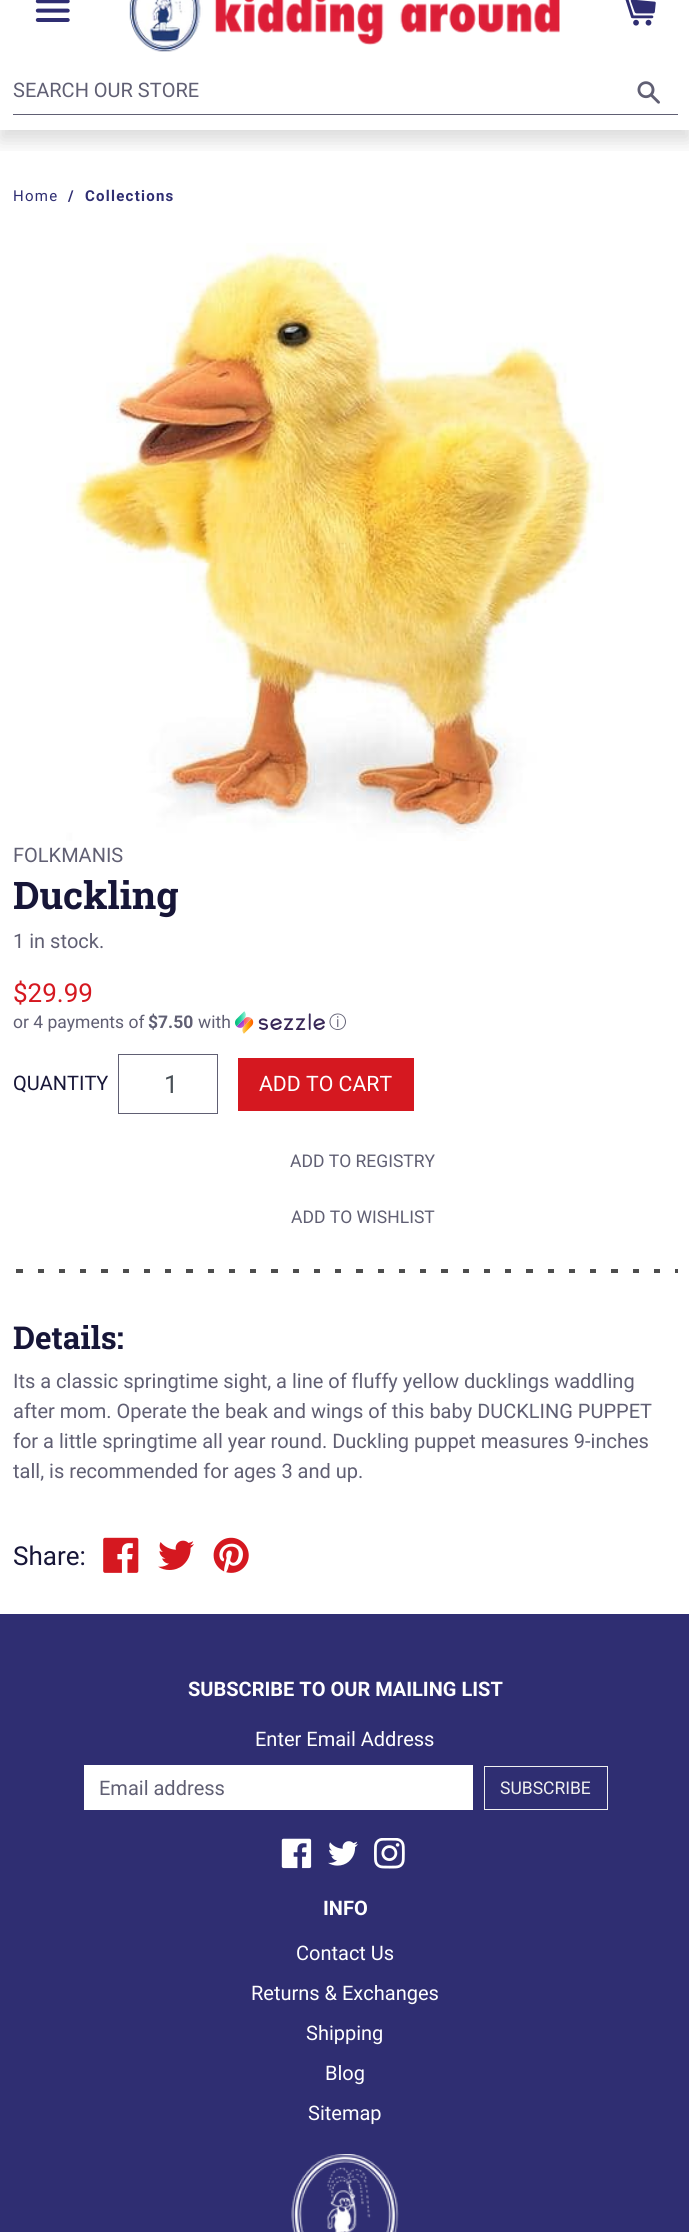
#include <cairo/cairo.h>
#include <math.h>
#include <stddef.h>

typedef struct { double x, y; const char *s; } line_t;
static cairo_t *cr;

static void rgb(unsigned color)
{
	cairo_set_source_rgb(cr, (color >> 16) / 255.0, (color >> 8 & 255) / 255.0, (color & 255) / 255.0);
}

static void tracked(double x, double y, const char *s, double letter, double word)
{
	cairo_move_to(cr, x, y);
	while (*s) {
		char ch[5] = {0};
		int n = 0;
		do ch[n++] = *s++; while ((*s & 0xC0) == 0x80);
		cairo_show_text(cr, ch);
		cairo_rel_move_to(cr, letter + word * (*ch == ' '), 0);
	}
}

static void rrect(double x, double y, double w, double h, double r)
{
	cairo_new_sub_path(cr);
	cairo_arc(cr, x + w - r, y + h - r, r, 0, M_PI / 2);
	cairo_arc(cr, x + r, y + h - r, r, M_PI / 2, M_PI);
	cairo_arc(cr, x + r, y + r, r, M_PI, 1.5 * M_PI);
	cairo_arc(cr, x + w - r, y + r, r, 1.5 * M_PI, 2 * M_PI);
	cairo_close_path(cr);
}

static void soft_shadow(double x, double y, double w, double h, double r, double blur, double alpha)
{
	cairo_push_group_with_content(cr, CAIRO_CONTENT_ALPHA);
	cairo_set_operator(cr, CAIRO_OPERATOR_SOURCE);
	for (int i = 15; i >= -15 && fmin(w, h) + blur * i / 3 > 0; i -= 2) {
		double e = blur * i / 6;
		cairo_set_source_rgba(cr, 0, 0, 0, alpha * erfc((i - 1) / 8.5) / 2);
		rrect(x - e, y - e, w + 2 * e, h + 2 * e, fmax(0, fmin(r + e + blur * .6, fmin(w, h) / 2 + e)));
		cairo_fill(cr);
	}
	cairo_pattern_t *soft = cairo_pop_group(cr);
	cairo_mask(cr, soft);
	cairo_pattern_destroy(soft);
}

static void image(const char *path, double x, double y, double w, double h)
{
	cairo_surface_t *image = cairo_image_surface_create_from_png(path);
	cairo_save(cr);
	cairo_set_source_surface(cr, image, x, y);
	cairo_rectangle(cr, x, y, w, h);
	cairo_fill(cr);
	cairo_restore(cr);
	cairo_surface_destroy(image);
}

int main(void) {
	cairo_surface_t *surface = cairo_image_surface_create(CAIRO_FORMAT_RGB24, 689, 2232);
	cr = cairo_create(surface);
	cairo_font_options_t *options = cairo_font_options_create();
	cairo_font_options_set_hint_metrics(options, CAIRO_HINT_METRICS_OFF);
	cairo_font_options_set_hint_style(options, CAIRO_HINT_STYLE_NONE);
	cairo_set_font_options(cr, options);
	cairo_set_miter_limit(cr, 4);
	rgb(0xffffff);
	cairo_paint(cr);
	cairo_save(cr);
	cairo_rectangle(cr, 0, 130, 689, 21);
	cairo_clip(cr);
	rgb(0x000000);
	soft_shadow(0, -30, 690, 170, 0, 10, 0.15);
	cairo_restore(cr);
	image("img/1.png", 35, 0, 35, 22);
	image("img/2.png", 129, 0, 431, 52);
	image("img/3.png", 625, 0, 31, 26);
	rgb(0x605f73);
	cairo_rectangle(cr, 13, 114, 665, 1);
	cairo_fill(cr);
	image("img/4.png", 637, 81, 23, 23);
	image("img/5.png", 66, 243, 538, 598);
	image("img/6.png", 235, 1011, 90, 23);
	cairo_rectangle(cr, 118.5, 1054.5, 99, 59);
	cairo_set_line_width(cr, 1);
	cairo_stroke(cr);
	rgb(0xd51820);
	cairo_rectangle(cr, 238, 1058, 176, 53);
	cairo_fill(cr);
	image("img/7.png", 16, 1269, 662, 4);
	image("img/8.png", 103, 1537, 36, 36);
	image("img/9.png", 158, 1540, 36, 30);
	image("img/10.png", 213, 1537, 36, 36);
	rgb(0x2f2e72);
	cairo_rectangle(cr, 0, 1614, 689, 618);
	cairo_fill(cr);
	rgb(0xffffff);
	cairo_rectangle(cr, 84, 1765, 389, 45);
	cairo_fill(cr);
	cairo_rectangle(cr, 484.5, 1766.5, 123, 43);
	rgb(0xf0f0f0);
	cairo_stroke(cr);
	image("img/11.png", 281, 1838, 31, 31);
	image("img/12.png", 328, 1841, 30, 25);
	image("img/13.png", 374, 1838, 31, 31);
	image("img/14.png", 291, 2154, 108, 78);
	cairo_select_font_face(cr, "Roboto", CAIRO_FONT_SLANT_NORMAL, CAIRO_FONT_WEIGHT_NORMAL);
	cairo_set_font_size(cr, 20);
	rgb(0x605f73);
	cairo_move_to(cr, 13, 97);
	cairo_show_text(cr, "SEARCH OUR STORE");
	cairo_set_font_size(cr, 15);
	rgb(0x2f2e72);
	tracked(13, 201, "Home", 1.25, 0);
	cairo_select_font_face(cr, "Roboto", CAIRO_FONT_SLANT_NORMAL, CAIRO_FONT_WEIGHT_BOLD);
	tracked(68, 201, "/", 1.25, 0);
	tracked(85, 201, "Collections", 1.25, 0);
	cairo_select_font_face(cr, "Roboto", CAIRO_FONT_SLANT_NORMAL, CAIRO_FONT_WEIGHT_NORMAL);
	cairo_set_font_size(cr, 20);
	rgb(0x605f73);
	cairo_move_to(cr, 13, 862);
	cairo_show_text(cr, "FOLKMANIS");
	cairo_select_font_face(cr, "Roboto Slab", CAIRO_FONT_SLANT_NORMAL, CAIRO_FONT_WEIGHT_BOLD);
	cairo_set_font_size(cr, 38);
	rgb(0x171638);
	cairo_move_to(cr, 13, 909);
	cairo_show_text(cr, "Duckling");
	cairo_select_font_face(cr, "Roboto", CAIRO_FONT_SLANT_NORMAL, CAIRO_FONT_WEIGHT_NORMAL);
	cairo_set_font_size(cr, 20);
	rgb(0x605f73);
	cairo_move_to(cr, 13, 948);
	cairo_show_text(cr, "1 in stock.");
	cairo_set_font_size(cr, 26);
	rgb(0xd51820);
	cairo_move_to(cr, 13, 1002);
	cairo_show_text(cr, "$29.99");
	cairo_set_font_size(cr, 17.5);
	rgb(0x605f73);
	cairo_move_to(cr, 13, 1028);
	cairo_show_text(cr, "or 4 payments of");
	cairo_select_font_face(cr, "Roboto", CAIRO_FONT_SLANT_NORMAL, CAIRO_FONT_WEIGHT_BOLD);
	cairo_move_to(cr, 148, 1028);
	cairo_show_text(cr, "$7.50");
	cairo_select_font_face(cr, "Roboto", CAIRO_FONT_SLANT_NORMAL, CAIRO_FONT_WEIGHT_NORMAL);
	cairo_move_to(cr, 198, 1028);
	cairo_show_text(cr, "with");
	cairo_select_font_face(cr, "WenQuanYi Zen Hei Medium", CAIRO_FONT_SLANT_NORMAL, CAIRO_FONT_WEIGHT_NORMAL);
	cairo_move_to(cr, 329, 1028);
	cairo_show_text(cr, "ⓘ");
	cairo_select_font_face(cr, "Roboto", CAIRO_FONT_SLANT_NORMAL, CAIRO_FONT_WEIGHT_NORMAL);
	cairo_set_font_size(cr, 20);
	rgb(0x171638);
	cairo_move_to(cr, 13, 1090);
	cairo_show_text(cr, "QUANTITY");
	cairo_set_font_size(cr, 25);
	rgb(0x495057);
	cairo_move_to(cr, 164, 1093);
	cairo_show_text(cr, "1");
	cairo_set_font_size(cr, 21.25);
	rgb(0xffffff);
	cairo_move_to(cr, 259, 1091);
	cairo_show_text(cr, "ADD TO CART");
	cairo_set_font_size(cr, 17.5);
	rgb(0x605f73);
	cairo_move_to(cr, 290, 1167);
	cairo_show_text(cr, "ADD TO REGISTRY");
	cairo_move_to(cr, 291, 1223);
	cairo_show_text(cr, "ADD TO WISHLIST");
	cairo_select_font_face(cr, "Roboto Slab", CAIRO_FONT_SLANT_NORMAL, CAIRO_FONT_WEIGHT_BOLD);
	cairo_set_font_size(cr, 31.5);
	rgb(0x171638);
	cairo_move_to(cr, 13, 1349);
	cairo_show_text(cr, "Details:");
	cairo_select_font_face(cr, "Roboto", CAIRO_FONT_SLANT_NORMAL, CAIRO_FONT_WEIGHT_NORMAL);
	cairo_set_font_size(cr, 20);
	rgb(0x605f73);
	{
		static const line_t items[] = {
			{13, 1388, "Its a classic springtime sight, a line of fluffy yellow ducklings waddling"},
			{13, 1418, "after mom. Operate the beak and wings of this baby DUCKLING PUPPET"},
			{13, 1448, "for a little springtime all year round. Duckling puppet measures 9-inches"},
			{13, 1478, "tall, is recommended for ages 3 and up."},
		};
		for (size_t i = 0; i < sizeof items / sizeof *items; i++) {
			cairo_move_to(cr, items[i].x, items[i].y);
			cairo_show_text(cr, items[i].s);
		}
	}
	cairo_set_font_size(cr, 26);
	rgb(0x171638);
	cairo_move_to(cr, 13, 1565);
	cairo_show_text(cr, "Share:");
	cairo_select_font_face(cr, "Roboto", CAIRO_FONT_SLANT_NORMAL, CAIRO_FONT_WEIGHT_BOLD);
	cairo_set_font_size(cr, 20);
	rgb(0xffffff);
	cairo_move_to(cr, 188, 1696);
	cairo_show_text(cr, "SUBSCRIBE TO OUR MAILING LIST");
	cairo_select_font_face(cr, "Roboto", CAIRO_FONT_SLANT_NORMAL, CAIRO_FONT_WEIGHT_NORMAL);
	cairo_move_to(cr, 255, 1746);
	cairo_show_text(cr, "Enter Email Address");
	rgb(0x605f73);
	cairo_move_to(cr, 99, 1795);
	cairo_show_text(cr, "Email address");
	cairo_set_font_size(cr, 17.5);
	rgb(0xf0f0f0);
	cairo_move_to(cr, 500, 1794);
	cairo_show_text(cr, "SUBSCRIBE");
	cairo_select_font_face(cr, "Roboto", CAIRO_FONT_SLANT_NORMAL, CAIRO_FONT_WEIGHT_BOLD);
	cairo_set_font_size(cr, 20);
	rgb(0xffffff);
	cairo_move_to(cr, 323, 1915);
	cairo_show_text(cr, "INFO");
	cairo_select_font_face(cr, "Roboto", CAIRO_FONT_SLANT_NORMAL, CAIRO_FONT_WEIGHT_NORMAL);
	{
		static const line_t items[] = {
			{296, 1960, "Contact Us"},
			{251, 2000, "Returns & Exchanges"},
			{306, 2040, "Shipping"},
			{325, 2080, "Blog"},
			{308, 2120, "Sitemap"},
		};
		for (size_t i = 0; i < sizeof items / sizeof *items; i++) {
			cairo_move_to(cr, items[i].x, items[i].y);
			cairo_show_text(cr, items[i].s);
		}
	}
	cairo_surface_write_to_png(surface, "page.png");
	cairo_font_options_destroy(options);
	cairo_destroy(cr);
	cairo_surface_destroy(surface);
	return 0;
}
